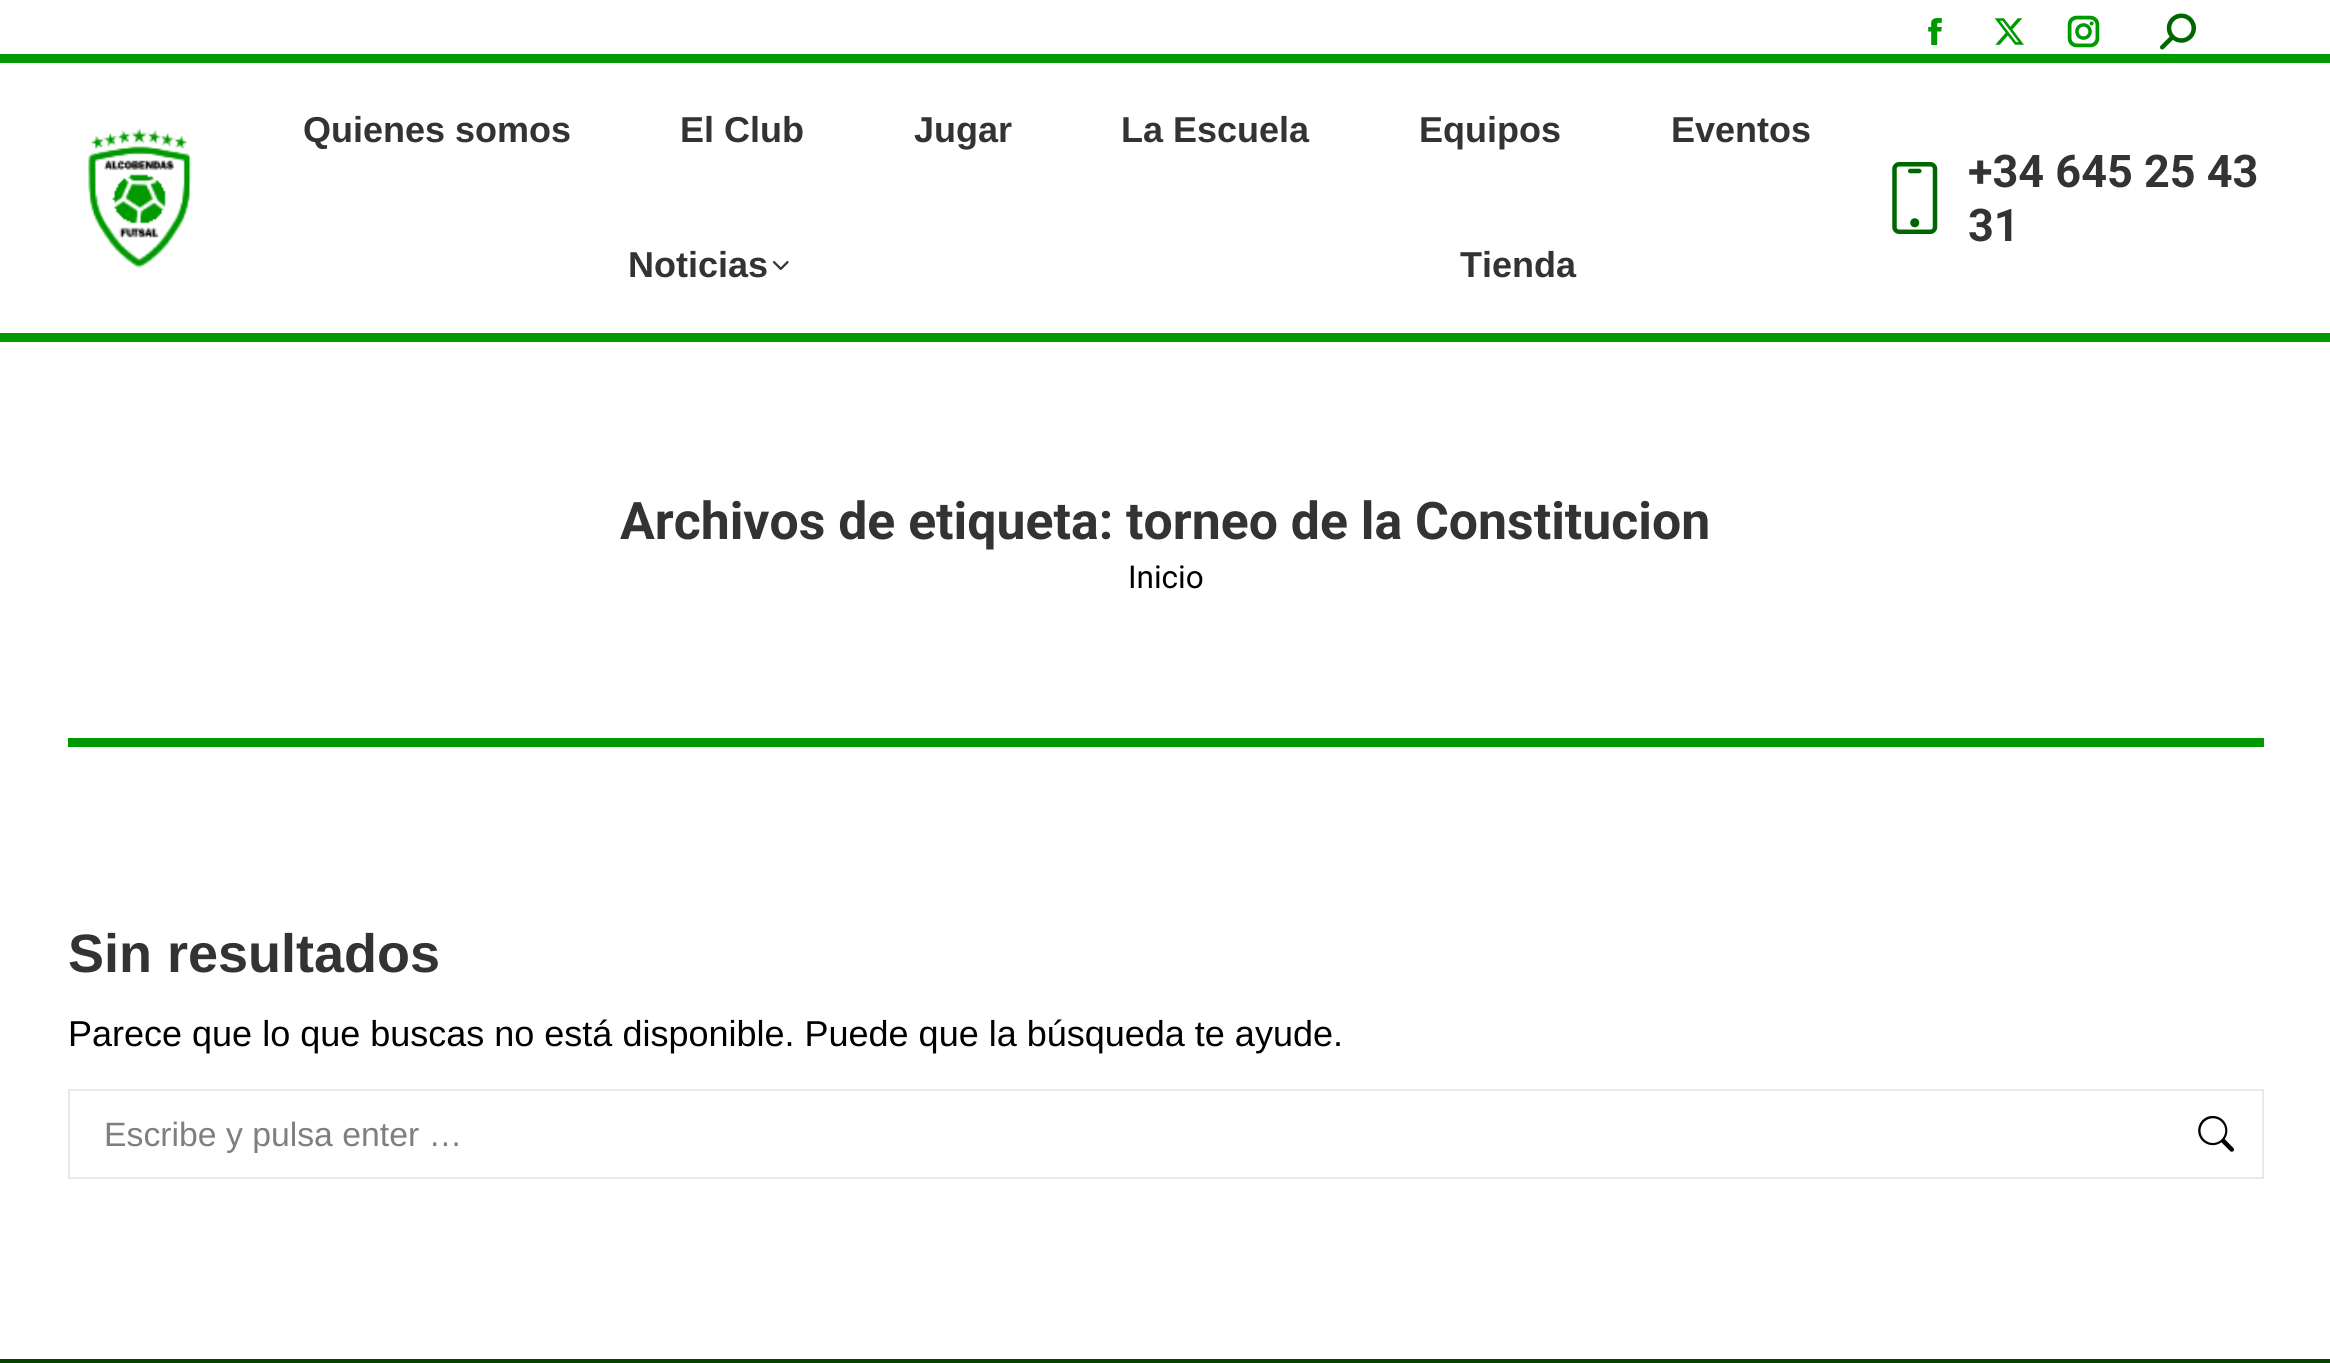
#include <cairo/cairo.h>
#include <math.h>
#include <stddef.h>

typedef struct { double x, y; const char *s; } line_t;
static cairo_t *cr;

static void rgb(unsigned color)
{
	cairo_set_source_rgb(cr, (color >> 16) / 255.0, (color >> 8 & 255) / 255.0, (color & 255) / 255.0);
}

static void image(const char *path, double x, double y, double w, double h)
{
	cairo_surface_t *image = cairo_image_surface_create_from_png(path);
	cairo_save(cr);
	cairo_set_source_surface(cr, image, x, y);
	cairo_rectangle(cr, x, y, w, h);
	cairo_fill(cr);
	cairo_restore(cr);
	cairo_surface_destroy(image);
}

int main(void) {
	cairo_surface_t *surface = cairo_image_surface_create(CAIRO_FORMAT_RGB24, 2330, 1363);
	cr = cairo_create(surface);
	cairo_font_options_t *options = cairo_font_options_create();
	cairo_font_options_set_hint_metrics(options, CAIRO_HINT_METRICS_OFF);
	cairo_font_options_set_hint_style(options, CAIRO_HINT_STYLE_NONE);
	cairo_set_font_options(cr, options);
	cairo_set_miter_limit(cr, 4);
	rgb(0xffffff);
	cairo_paint(cr);
	rgb(0x019a01);
	cairo_rectangle(cr, 0, 333, 2330, 9);
	cairo_fill(cr);
	image("img/1.png", 1928, 18, 14, 27);
	image("img/2.png", 1994, 18, 30, 27);
	image("img/3.png", 2067, 15, 33, 33);
	image("img/4.png", 2160, 13, 36, 37);
	cairo_rectangle(cr, 0, 54, 2330, 9);
	cairo_fill(cr);
	image("img/5.png", 88, 128, 104, 140);
	image("img/6.png", 772, 261, 17, 9);
	image("img/7.png", 1892, 162, 46, 72);
	rgb(0x009900);
	cairo_rectangle(cr, 68, 738, 2196, 9);
	cairo_fill(cr);
	cairo_rectangle(cr, 69, 1090, 2194, 88);
	rgb(0xe9e9e9);
	cairo_stroke(cr);
	image("img/8.png", 2198, 1116, 36, 36);
	rgb(0x054201);
	cairo_rectangle(cr, 0, 1359, 2330, 4);
	cairo_fill(cr);
	cairo_select_font_face(cr, "Liberation Sans", CAIRO_FONT_SLANT_NORMAL, CAIRO_FONT_WEIGHT_BOLD);
	cairo_set_font_size(cr, 36);
	rgb(0x333333);
	{
		static const line_t items[] = {
			{303, 142, "Quienes somos"},
			{680, 142, "El Club"},
			{914, 142, "Jugar"},
			{1121, 142, "La Escuela"},
			{1419, 142, "Equipos"},
			{1671, 142, "Eventos"},
			{628, 277, "Noticias"},
			{1460, 277, "Tienda"},
		};
		for (size_t i = 0; i < sizeof items / sizeof *items; i++) {
			cairo_move_to(cr, items[i].x, items[i].y);
			cairo_show_text(cr, items[i].s);
		}
	}
	cairo_select_font_face(cr, "Roboto", CAIRO_FONT_SLANT_NORMAL, CAIRO_FONT_WEIGHT_BOLD);
	cairo_set_font_size(cr, 45);
	cairo_move_to(cr, 1968, 187);
	cairo_show_text(cr, "+34 645 25 43");
	cairo_move_to(cr, 1968, 241);
	cairo_show_text(cr, "31");
	cairo_set_font_size(cr, 51.75);
	cairo_move_to(cr, 620, 539);
	cairo_show_text(cr, "Archivos de etiqueta: torneo de la Constitucion");
	cairo_select_font_face(cr, "Roboto", CAIRO_FONT_SLANT_NORMAL, CAIRO_FONT_WEIGHT_NORMAL);
	cairo_set_font_size(cr, 31.5);
	rgb(0x000000);
	cairo_move_to(cr, 1128, 588);
	cairo_show_text(cr, "Inicio");
	cairo_select_font_face(cr, "Liberation Sans", CAIRO_FONT_SLANT_NORMAL, CAIRO_FONT_WEIGHT_BOLD);
	cairo_set_font_size(cr, 54);
	rgb(0x333333);
	cairo_move_to(cr, 68, 972);
	cairo_show_text(cr, "Sin resultados");
	cairo_select_font_face(cr, "Liberation Sans", CAIRO_FONT_SLANT_NORMAL, CAIRO_FONT_WEIGHT_NORMAL);
	cairo_set_font_size(cr, 36);
	rgb(0x000000);
	cairo_move_to(cr, 68, 1046);
	cairo_show_text(cr, "Parece que lo que buscas no está disponible. Puede que la búsqueda te ayude.");
	cairo_set_font_size(cr, 33.75);
	rgb(0x7f7f7f);
	cairo_move_to(cr, 104, 1146);
	cairo_show_text(cr, "Escribe y pulsa enter …");
	cairo_surface_write_to_png(surface, "page.png");
	cairo_font_options_destroy(options);
	cairo_destroy(cr);
	cairo_surface_destroy(surface);
	return 0;
}
